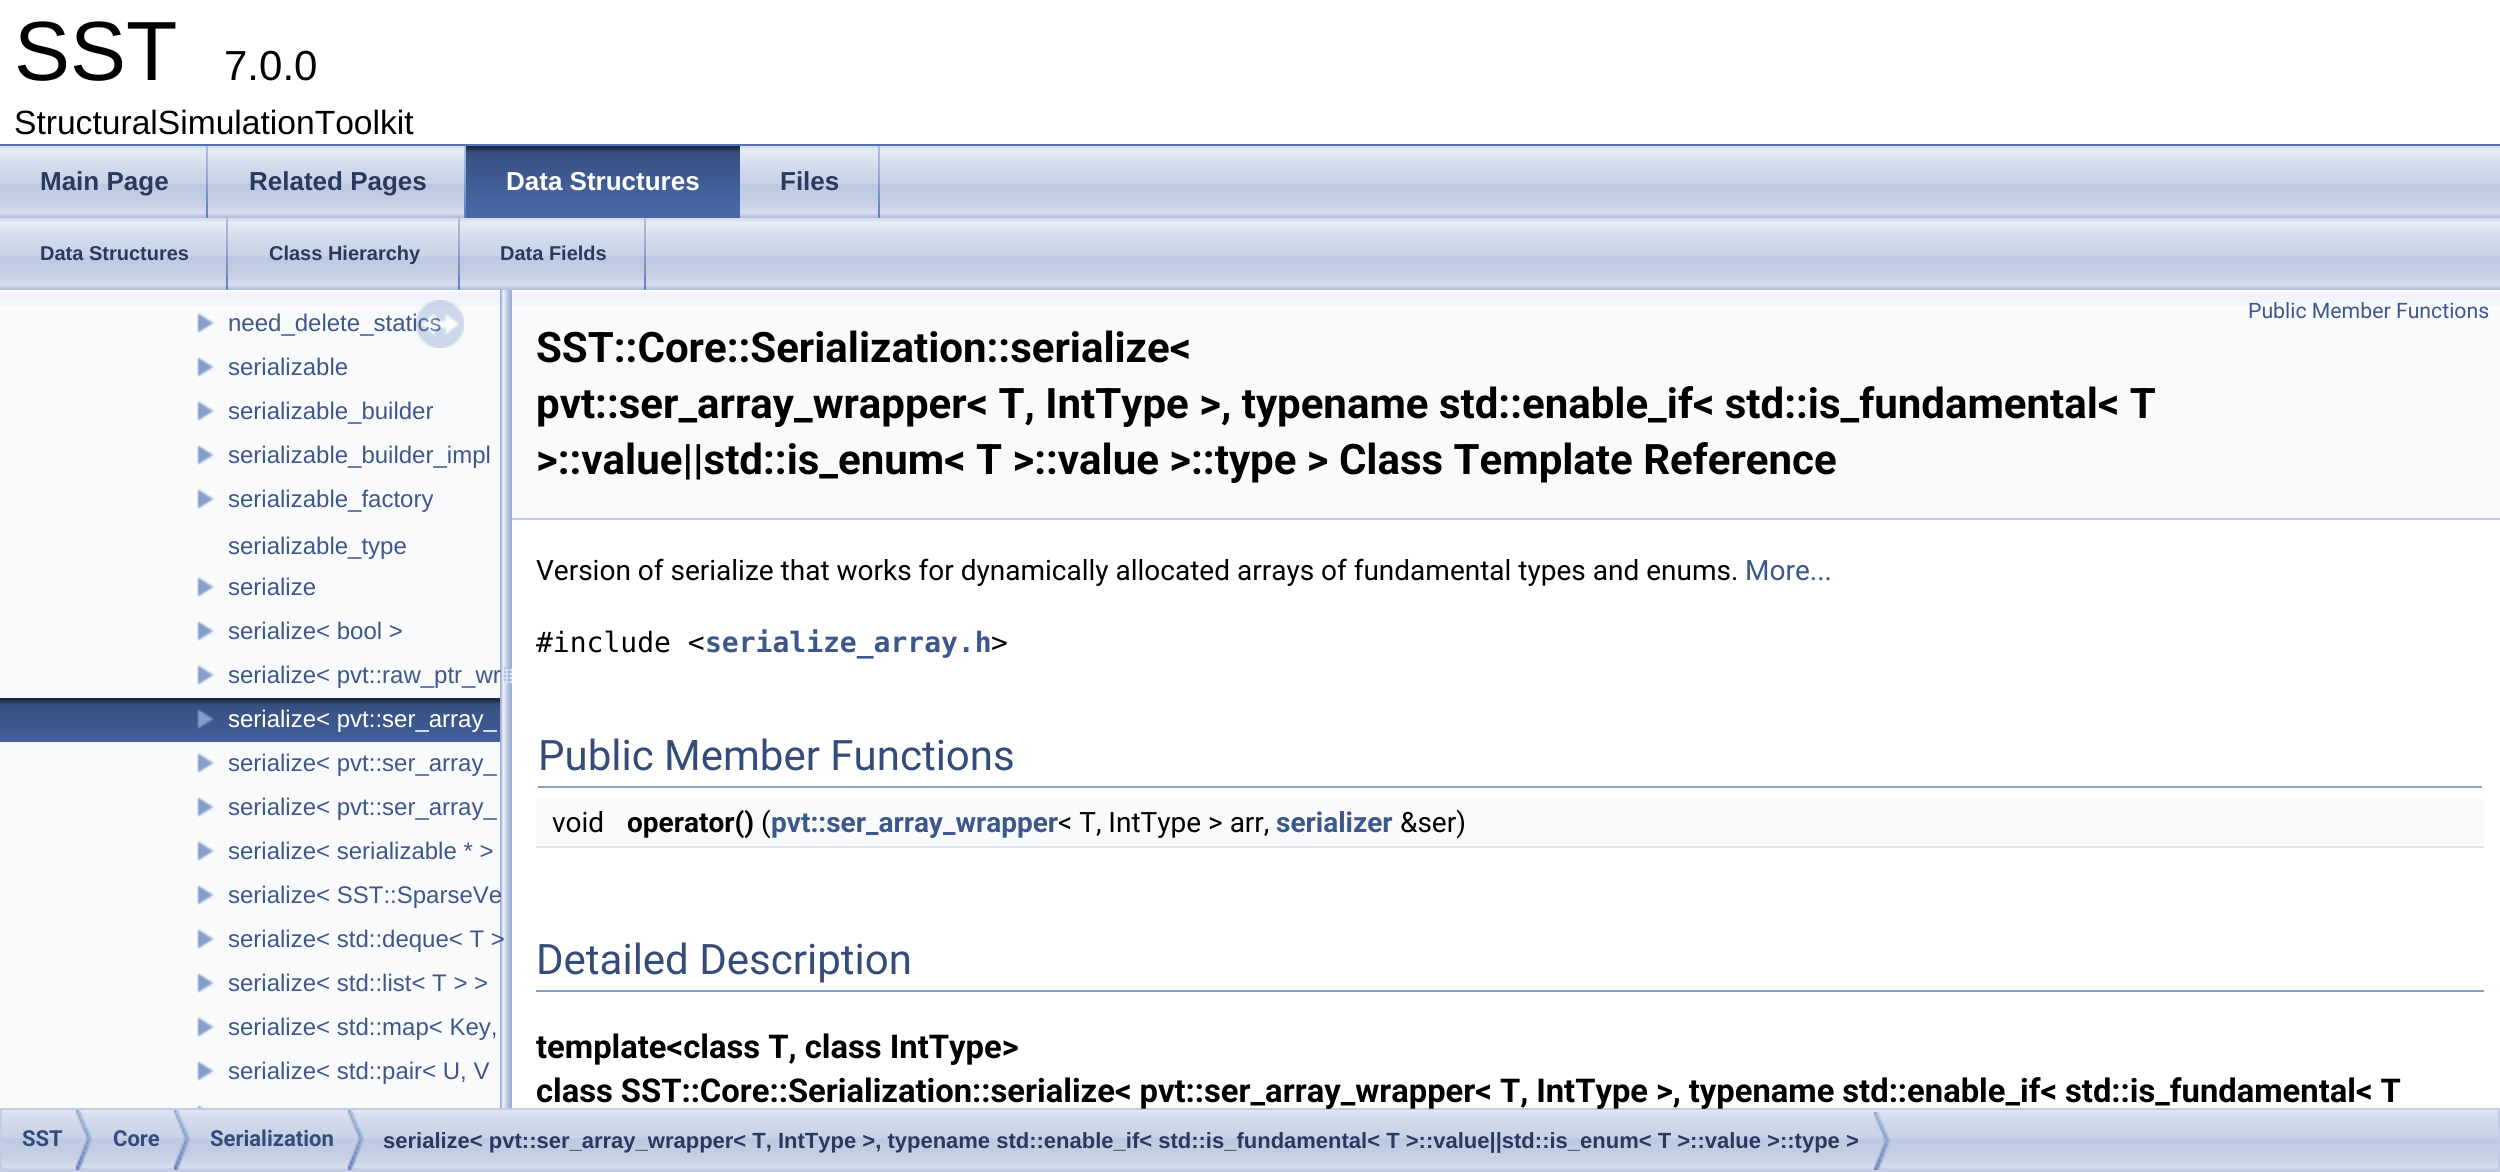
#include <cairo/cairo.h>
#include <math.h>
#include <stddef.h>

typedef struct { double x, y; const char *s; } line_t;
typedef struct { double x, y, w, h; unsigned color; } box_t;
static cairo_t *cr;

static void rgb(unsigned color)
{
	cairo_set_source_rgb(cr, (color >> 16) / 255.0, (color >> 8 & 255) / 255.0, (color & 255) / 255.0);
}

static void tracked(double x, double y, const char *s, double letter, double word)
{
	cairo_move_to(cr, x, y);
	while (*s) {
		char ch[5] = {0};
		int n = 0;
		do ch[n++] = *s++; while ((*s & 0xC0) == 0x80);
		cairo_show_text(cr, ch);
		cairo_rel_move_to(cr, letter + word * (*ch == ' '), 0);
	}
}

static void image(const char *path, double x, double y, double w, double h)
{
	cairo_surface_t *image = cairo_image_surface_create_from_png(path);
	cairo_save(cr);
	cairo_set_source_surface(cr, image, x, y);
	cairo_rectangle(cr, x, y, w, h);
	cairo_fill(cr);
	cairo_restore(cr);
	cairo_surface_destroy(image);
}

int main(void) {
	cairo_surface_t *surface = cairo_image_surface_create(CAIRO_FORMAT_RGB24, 2500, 1172);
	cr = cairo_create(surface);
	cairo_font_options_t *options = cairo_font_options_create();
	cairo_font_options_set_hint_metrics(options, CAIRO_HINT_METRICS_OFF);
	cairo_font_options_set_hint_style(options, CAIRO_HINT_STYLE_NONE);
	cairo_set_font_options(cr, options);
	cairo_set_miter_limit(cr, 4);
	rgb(0xffffff);
	cairo_paint(cr);
	rgb(0x5373b4);
	cairo_rectangle(cr, 0, 144, 2500, 2);
	cairo_fill(cr);
	image("img/1.png", 0, 146, 2500, 72);
	image("img/2.png", 206, 146, 2, 72);
	image("img/2.png", 464, 146, 2, 72);
	image("img/3.png", 466, 146, 274, 72);
	image("img/2.png", 878, 146, 2, 72);
	image("img/1.png", 0, 218, 2500, 72);
	image("img/2.png", 226, 218, 2, 72);
	image("img/2.png", 458, 218, 2, 72);
	image("img/2.png", 644, 218, 2, 72);
	rgb(0xf9fafc);
	cairo_rectangle(cr, 0, 306, 500, 802);
	cairo_fill(cr);
	image("img/4.png", 0, 290, 500, 16);
	image("img/6.png", 197, 313, 18, 20);
	image("img/6.png", 197, 357, 18, 20);
	image("img/6.png", 197, 401, 18, 20);
	image("img/6.png", 197, 445, 18, 20);
	image("img/6.png", 197, 489, 18, 20);
	image("img/6.png", 197, 577, 18, 20);
	image("img/6.png", 197, 621, 18, 20);
	image("img/6.png", 197, 665, 18, 20);
	image("img/7.png", 0, 698, 500, 44);
	image("img/8.png", 197, 709, 17, 20);
	image("img/6.png", 197, 753, 18, 20);
	image("img/6.png", 197, 797, 18, 20);
	image("img/6.png", 197, 841, 18, 20);
	image("img/6.png", 197, 885, 18, 20);
	image("img/6.png", 197, 929, 18, 20);
	image("img/6.png", 197, 973, 18, 20);
	image("img/6.png", 197, 1017, 18, 20);
	image("img/6.png", 197, 1061, 18, 20);
	image("img/9.png", 197, 1105, 8, 3);
	image("img/10.png", 500, 290, 12, 818);
	cairo_rectangle(cr, 512, 306, 1988, 212);
	cairo_fill(cr);
	image("img/11.png", 512, 290, 1988, 16);
	{
		static const box_t items[] = {
			{512, 518, 1988, 2, 0xc4cfe5},
			{538, 786, 1944, 2, 0x879ecb},
			{536, 798, 1948, 46, 0xf9fafc},
			{536, 846, 1948, 2, 0xdee4f0},
			{536, 990, 1948, 2, 0x879ecb},
		};
		for (size_t i = 0; i < sizeof items / sizeof *items; i++) {
			rgb(items[i].color);
			cairo_rectangle(cr, items[i].x, items[i].y, items[i].w, items[i].h);
			cairo_fill(cr);
		}
	}
	image("img/12.png", 2, 1110, 2496, 60);
	cairo_rectangle(cr, 1, 1109, 2498, 62);
	rgb(0xc2cde4);
	cairo_stroke(cr);
	image("img/13.png", 76, 1110, 16, 60);
	image("img/13.png", 174, 1110, 16, 60);
	image("img/13.png", 348, 1110, 16, 60);
	image("img/14.png", 1874, 1112, 16, 58);
	cairo_select_font_face(cr, "Liberation Sans", CAIRO_FONT_SLANT_NORMAL, CAIRO_FONT_WEIGHT_NORMAL);
	cairo_set_font_size(cr, 84);
	rgb(0x000000);
	cairo_move_to(cr, 14, 80);
	cairo_show_text(cr, "SST");
	cairo_set_font_size(cr, 42);
	cairo_move_to(cr, 224, 80);
	cairo_show_text(cr, "7.0.0");
	cairo_set_font_size(cr, 33.6);
	cairo_move_to(cr, 14, 134);
	cairo_show_text(cr, "StructuralSimulationToolkit");
	cairo_select_font_face(cr, "Liberation Sans", CAIRO_FONT_SLANT_NORMAL, CAIRO_FONT_WEIGHT_BOLD);
	cairo_set_font_size(cr, 26);
	rgb(0x283a5d);
	cairo_move_to(cr, 40, 190);
	cairo_show_text(cr, "Main Page");
	cairo_move_to(cr, 249, 190);
	cairo_show_text(cr, "Related Pages");
	rgb(0xffffff);
	cairo_move_to(cr, 506, 190);
	cairo_show_text(cr, "Data Structures");
	rgb(0x283a5d);
	cairo_move_to(cr, 780, 190);
	cairo_show_text(cr, "Files");
	cairo_set_font_size(cr, 20);
	{
		static const line_t items[] = {
			{40, 260, "Data Structures"},
			{269, 260, "Class Hierarchy"},
			{500, 260, "Data Fields"},
		};
		for (size_t i = 0; i < sizeof items / sizeof *items; i++) {
			cairo_move_to(cr, items[i].x, items[i].y);
			cairo_show_text(cr, items[i].s);
		}
	}
	cairo_select_font_face(cr, "Liberation Sans", CAIRO_FONT_SLANT_NORMAL, CAIRO_FONT_WEIGHT_NORMAL);
	cairo_set_font_size(cr, 24);
	rgb(0x3d578c);
	cairo_move_to(cr, 228, 331);
	cairo_show_text(cr, "need_delete_statics");
	image("img/5.png", 416, 300, 48, 48);
	{
		static const line_t items[] = {
			{228, 375, "serializable"},
			{228, 419, "serializable_builder"},
			{228, 463, "serializable_builder_impl"},
			{228, 507, "serializable_factory"},
			{228, 554, "serializable_type"},
			{228, 595, "serialize"},
			{228, 639, "serialize< bool >"},
			{228, 683, "serialize< pvt::raw_ptr_wr"},
		};
		for (size_t i = 0; i < sizeof items / sizeof *items; i++) {
			cairo_move_to(cr, items[i].x, items[i].y);
			cairo_show_text(cr, items[i].s);
		}
	}
	rgb(0xffffff);
	cairo_move_to(cr, 228, 727);
	cairo_show_text(cr, "serialize< pvt::ser_array_");
	rgb(0x3d578c);
	{
		static const line_t items[] = {
			{228, 771, "serialize< pvt::ser_array_"},
			{228, 815, "serialize< pvt::ser_array_"},
			{228, 859, "serialize< serializable * >"},
			{228, 903, "serialize< SST::SparseVe"},
			{228, 947, "serialize< std::deque< T >"},
			{228, 991, "serialize< std::list< T > >"},
			{228, 1035, "serialize< std::map< Key,"},
			{228, 1079, "serialize< std::pair< U, V"},
		};
		for (size_t i = 0; i < sizeof items / sizeof *items; i++) {
			cairo_move_to(cr, items[i].x, items[i].y);
			cairo_show_text(cr, items[i].s);
		}
	}
	cairo_select_font_face(cr, "Roboto", CAIRO_FONT_SLANT_NORMAL, CAIRO_FONT_WEIGHT_NORMAL);
	cairo_set_font_size(cr, 21.25);
	cairo_move_to(cr, 2248, 318);
	cairo_show_text(cr, "Public Member Functions");
	cairo_select_font_face(cr, "Roboto", CAIRO_FONT_SLANT_NORMAL, CAIRO_FONT_WEIGHT_BOLD);
	cairo_set_font_size(cr, 42);
	rgb(0x000000);
	{
		static const line_t items[] = {
			{536, 362, "SST::Core::Serialization::serialize<"},
			{536, 418, "pvt::ser_array_wrapper< T, IntType >, typename std::enable_if< std::is_fundamental< T"},
			{536, 474, ">::value||std::is_enum< T >::value >::type > Class Template Reference"},
		};
		for (size_t i = 0; i < sizeof items / sizeof *items; i++) {
			cairo_move_to(cr, items[i].x, items[i].y);
			cairo_show_text(cr, items[i].s);
		}
	}
	cairo_select_font_face(cr, "Roboto", CAIRO_FONT_SLANT_NORMAL, CAIRO_FONT_WEIGHT_NORMAL);
	cairo_set_font_size(cr, 28);
	cairo_move_to(cr, 536, 580);
	cairo_show_text(cr, "Version of serialize that works for dynamically allocated arrays of fundamental types and enums.");
	rgb(0x3d578c);
	cairo_move_to(cr, 1745, 580);
	cairo_show_text(cr, "More...");
	cairo_select_font_face(cr, "DejaVu Sans Mono", CAIRO_FONT_SLANT_NORMAL, CAIRO_FONT_WEIGHT_NORMAL);
	rgb(0x000000);
	cairo_move_to(cr, 536, 652);
	cairo_show_text(cr, "#include <");
	cairo_select_font_face(cr, "DejaVu Sans Mono", CAIRO_FONT_SLANT_NORMAL, CAIRO_FONT_WEIGHT_BOLD);
	rgb(0x3d578c);
	cairo_move_to(cr, 705, 652);
	cairo_show_text(cr, "serialize_array.h");
	cairo_select_font_face(cr, "DejaVu Sans Mono", CAIRO_FONT_SLANT_NORMAL, CAIRO_FONT_WEIGHT_NORMAL);
	rgb(0x000000);
	cairo_move_to(cr, 991, 652);
	cairo_show_text(cr, ">");
	cairo_select_font_face(cr, "Roboto", CAIRO_FONT_SLANT_NORMAL, CAIRO_FONT_WEIGHT_NORMAL);
	cairo_set_font_size(cr, 42);
	rgb(0x354c7b);
	cairo_move_to(cr, 538, 770);
	cairo_show_text(cr, "Public Member Functions");
	cairo_set_font_size(cr, 28);
	rgb(0x000000);
	cairo_move_to(cr, 552, 832);
	cairo_show_text(cr, "void");
	cairo_select_font_face(cr, "Roboto", CAIRO_FONT_SLANT_NORMAL, CAIRO_FONT_WEIGHT_BOLD);
	cairo_move_to(cr, 627, 832);
	cairo_show_text(cr, "operator()");
	cairo_select_font_face(cr, "Roboto", CAIRO_FONT_SLANT_NORMAL, CAIRO_FONT_WEIGHT_NORMAL);
	cairo_move_to(cr, 761, 832);
	cairo_show_text(cr, "(");
	cairo_select_font_face(cr, "Roboto", CAIRO_FONT_SLANT_NORMAL, CAIRO_FONT_WEIGHT_BOLD);
	rgb(0x3d578c);
	cairo_move_to(cr, 771, 832);
	cairo_show_text(cr, "pvt::ser_array_wrapper");
	cairo_select_font_face(cr, "Roboto", CAIRO_FONT_SLANT_NORMAL, CAIRO_FONT_WEIGHT_NORMAL);
	rgb(0x000000);
	cairo_move_to(cr, 1058, 832);
	cairo_show_text(cr, "< T, IntType > arr,");
	cairo_select_font_face(cr, "Roboto", CAIRO_FONT_SLANT_NORMAL, CAIRO_FONT_WEIGHT_BOLD);
	rgb(0x3d578c);
	cairo_move_to(cr, 1276, 832);
	cairo_show_text(cr, "serializer");
	cairo_select_font_face(cr, "Roboto", CAIRO_FONT_SLANT_NORMAL, CAIRO_FONT_WEIGHT_NORMAL);
	rgb(0x000000);
	cairo_move_to(cr, 1400, 832);
	cairo_show_text(cr, "&ser)");
	cairo_set_font_size(cr, 42);
	rgb(0x354c7b);
	cairo_move_to(cr, 536, 974);
	cairo_show_text(cr, "Detailed Description");
	cairo_select_font_face(cr, "Roboto", CAIRO_FONT_SLANT_NORMAL, CAIRO_FONT_WEIGHT_BOLD);
	cairo_set_font_size(cr, 32.75);
	rgb(0x000000);
	cairo_move_to(cr, 536, 1058);
	cairo_show_text(cr, "template<class T, class IntType>");
	tracked(536, 1102, "class SST::Core::Serialization::serialize< pvt::ser_array_wrapper< T, IntType >, typename std::enable_if< std::is_fundamental< T", 0, -0.25);
	cairo_set_font_size(cr, 22);
	rgb(0x354c7b);
	{
		static const line_t items[] = {
			{22, 1146, "SST"},
			{113, 1146, "Core"},
			{210, 1146, "Serialization"},
		};
		for (size_t i = 0; i < sizeof items / sizeof *items; i++) {
			cairo_move_to(cr, items[i].x, items[i].y);
			cairo_show_text(cr, items[i].s);
		}
	}
	cairo_select_font_face(cr, "Liberation Sans", CAIRO_FONT_SLANT_NORMAL, CAIRO_FONT_WEIGHT_BOLD);
	rgb(0x283a5d);
	cairo_move_to(cr, 383, 1148);
	cairo_show_text(cr, "serialize< pvt::ser_array_wrapper< T, IntType >, typename std::enable_if< std::is_fundamental< T >::value||std::is_enum< T >::value >::type >");
	cairo_surface_write_to_png(surface, "page.png");
	cairo_font_options_destroy(options);
	cairo_destroy(cr);
	cairo_surface_destroy(surface);
	return 0;
}
